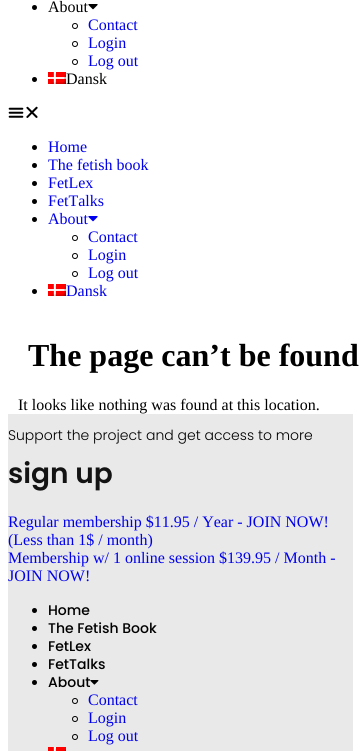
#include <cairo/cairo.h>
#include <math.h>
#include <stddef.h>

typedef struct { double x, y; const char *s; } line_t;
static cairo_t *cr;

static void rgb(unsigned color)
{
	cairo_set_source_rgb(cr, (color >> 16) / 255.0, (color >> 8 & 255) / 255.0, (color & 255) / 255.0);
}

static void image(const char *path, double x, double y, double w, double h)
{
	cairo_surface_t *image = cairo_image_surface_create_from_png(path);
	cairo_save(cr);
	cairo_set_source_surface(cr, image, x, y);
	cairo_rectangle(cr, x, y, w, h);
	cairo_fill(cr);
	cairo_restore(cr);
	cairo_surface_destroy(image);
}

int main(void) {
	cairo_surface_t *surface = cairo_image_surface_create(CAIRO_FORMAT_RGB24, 361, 751);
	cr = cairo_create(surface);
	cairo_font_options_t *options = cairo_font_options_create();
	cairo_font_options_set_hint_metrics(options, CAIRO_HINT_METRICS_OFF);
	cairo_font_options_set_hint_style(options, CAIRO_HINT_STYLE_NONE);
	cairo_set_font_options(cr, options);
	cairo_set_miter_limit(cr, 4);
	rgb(0xffffff);
	cairo_paint(cr);
	rgb(0x000000);
	cairo_arc(cr, 34.5, 7.5, 2.5, 0, 2 * M_PI);
	cairo_fill(cr);
	image("img/1.png", 88, 4, 10, 6);
	cairo_arc(cr, 75, 26, 2.5, 0, 2 * M_PI);
	cairo_set_line_width(cr, 1);
	cairo_stroke(cr);
	cairo_arc(cr, 75, 44, 2.5, 0, 2 * M_PI);
	cairo_stroke(cr);
	cairo_arc(cr, 75, 62, 2.5, 0, 2 * M_PI);
	cairo_stroke(cr);
	cairo_arc(cr, 34.5, 79.5, 2.5, 0, 2 * M_PI);
	cairo_fill(cr);
	image("img/2.png", 48, 72, 18, 12);
	image("img/3.png", 8, 107, 16, 11);
	image("img/4.png", 26, 106, 12, 12);
	cairo_arc(cr, 34.5, 147.5, 2.5, 0, 2 * M_PI);
	cairo_fill(cr);
	cairo_arc(cr, 34.5, 165.5, 2.5, 0, 2 * M_PI);
	cairo_fill(cr);
	cairo_arc(cr, 34.5, 183.5, 2.5, 0, 2 * M_PI);
	cairo_fill(cr);
	cairo_arc(cr, 34.5, 201.5, 2.5, 0, 2 * M_PI);
	cairo_fill(cr);
	cairo_arc(cr, 34.5, 219.5, 2.5, 0, 2 * M_PI);
	cairo_fill(cr);
	image("img/5.png", 88, 216, 10, 6);
	cairo_arc(cr, 75, 238, 2.5, 0, 2 * M_PI);
	cairo_stroke(cr);
	cairo_arc(cr, 75, 256, 2.5, 0, 2 * M_PI);
	cairo_stroke(cr);
	cairo_arc(cr, 75, 274, 2.5, 0, 2 * M_PI);
	cairo_stroke(cr);
	cairo_arc(cr, 34.5, 291.5, 2.5, 0, 2 * M_PI);
	cairo_fill(cr);
	image("img/2.png", 48, 284, 18, 12);
	rgb(0xe9e9e9);
	cairo_rectangle(cr, 8, 414, 345, 337);
	cairo_fill(cr);
	rgb(0x000000);
	cairo_arc(cr, 34.5, 610.5, 2.5, 0, 2 * M_PI);
	cairo_fill(cr);
	cairo_arc(cr, 34.5, 628.5, 2.5, 0, 2 * M_PI);
	cairo_fill(cr);
	cairo_arc(cr, 34.5, 646.5, 2.5, 0, 2 * M_PI);
	cairo_fill(cr);
	cairo_arc(cr, 34.5, 664.5, 2.5, 0, 2 * M_PI);
	cairo_fill(cr);
	cairo_arc(cr, 34.5, 682.5, 2.5, 0, 2 * M_PI);
	cairo_fill(cr);
	cairo_arc(cr, 75, 701, 2.5, 0, 2 * M_PI);
	cairo_stroke(cr);
	cairo_arc(cr, 75, 719, 2.5, 0, 2 * M_PI);
	cairo_stroke(cr);
	cairo_arc(cr, 75, 737, 2.5, 0, 2 * M_PI);
	cairo_stroke(cr);
	image("img/7.png", 48, 747, 18, 4);
	cairo_select_font_face(cr, "Liberation Serif", CAIRO_FONT_SLANT_NORMAL, CAIRO_FONT_WEIGHT_NORMAL);
	cairo_set_font_size(cr, 16);
	cairo_move_to(cr, 48, 12);
	cairo_show_text(cr, "About");
	rgb(0x0000ee);
	{
		static const line_t items[] = {
			{88, 30, "Contact"},
			{88, 48, "Login"},
			{88, 66, "Log out"},
		};
		for (size_t i = 0; i < sizeof items / sizeof *items; i++) {
			cairo_move_to(cr, items[i].x, items[i].y);
			cairo_show_text(cr, items[i].s);
		}
	}
	rgb(0x000000);
	cairo_move_to(cr, 66, 84);
	cairo_show_text(cr, "Dansk");
	rgb(0x0000ee);
	{
		static const line_t items[] = {
			{48, 152, "Home"},
			{48, 170, "The fetish book"},
			{48, 188, "FetLex"},
			{48, 206, "FetTalks"},
			{48, 224, "About"},
			{88, 242, "Contact"},
			{88, 260, "Login"},
			{88, 278, "Log out"},
			{66, 296, "Dansk"},
		};
		for (size_t i = 0; i < sizeof items / sizeof *items; i++) {
			cairo_move_to(cr, items[i].x, items[i].y);
			cairo_show_text(cr, items[i].s);
		}
	}
	cairo_select_font_face(cr, "Liberation Serif", CAIRO_FONT_SLANT_NORMAL, CAIRO_FONT_WEIGHT_BOLD);
	cairo_set_font_size(cr, 32);
	rgb(0x000000);
	cairo_move_to(cr, 28, 366);
	cairo_show_text(cr, "The page can’t be found");
	cairo_select_font_face(cr, "Liberation Serif", CAIRO_FONT_SLANT_NORMAL, CAIRO_FONT_WEIGHT_NORMAL);
	cairo_set_font_size(cr, 16);
	cairo_move_to(cr, 18, 410);
	cairo_show_text(cr, "It looks like nothing was found at this location.");
	cairo_select_font_face(cr, "Poppins Light", CAIRO_FONT_SLANT_NORMAL, CAIRO_FONT_WEIGHT_NORMAL);
	cairo_set_font_size(cr, 14);
	cairo_move_to(cr, 8, 440);
	cairo_show_text(cr, "Support the project and get access to more");
	cairo_select_font_face(cr, "Poppins SemiBold", CAIRO_FONT_SLANT_NORMAL, CAIRO_FONT_WEIGHT_NORMAL);
	cairo_set_font_size(cr, 28);
	rgb(0x141313);
	cairo_move_to(cr, 8, 483);
	cairo_show_text(cr, "sign up");
	cairo_select_font_face(cr, "Liberation Serif", CAIRO_FONT_SLANT_NORMAL, CAIRO_FONT_WEIGHT_NORMAL);
	cairo_set_font_size(cr, 16);
	rgb(0x0000ee);
	{
		static const line_t items[] = {
			{8, 527, "Regular membership $11.95 / Year - JOIN NOW!"},
			{8, 545, "(Less than 1$ / month)"},
			{8, 563, "Membership w/ 1 online session $139.95 / Month -"},
			{8, 581, "JOIN NOW!"},
		};
		for (size_t i = 0; i < sizeof items / sizeof *items; i++) {
			cairo_move_to(cr, items[i].x, items[i].y);
			cairo_show_text(cr, items[i].s);
		}
	}
	cairo_select_font_face(cr, "Poppins Medium", CAIRO_FONT_SLANT_NORMAL, CAIRO_FONT_WEIGHT_NORMAL);
	cairo_set_font_size(cr, 14);
	rgb(0x000000);
	{
		static const line_t items[] = {
			{48, 615, "Home"},
			{48, 633, "The Fetish Book"},
			{48, 651, "FetLex"},
			{48, 669, "FetTalks"},
			{48, 687, "About"},
		};
		for (size_t i = 0; i < sizeof items / sizeof *items; i++) {
			cairo_move_to(cr, items[i].x, items[i].y);
			cairo_show_text(cr, items[i].s);
		}
	}
	image("img/6.png", 90, 680, 9, 5);
	cairo_select_font_face(cr, "Liberation Serif", CAIRO_FONT_SLANT_NORMAL, CAIRO_FONT_WEIGHT_NORMAL);
	cairo_set_font_size(cr, 16);
	rgb(0x0000ee);
	{
		static const line_t items[] = {
			{88, 705, "Contact"},
			{88, 723, "Login"},
			{88, 741, "Log out"},
		};
		for (size_t i = 0; i < sizeof items / sizeof *items; i++) {
			cairo_move_to(cr, items[i].x, items[i].y);
			cairo_show_text(cr, items[i].s);
		}
	}
	cairo_surface_write_to_png(surface, "page.png");
	cairo_font_options_destroy(options);
	cairo_destroy(cr);
	cairo_surface_destroy(surface);
	return 0;
}
